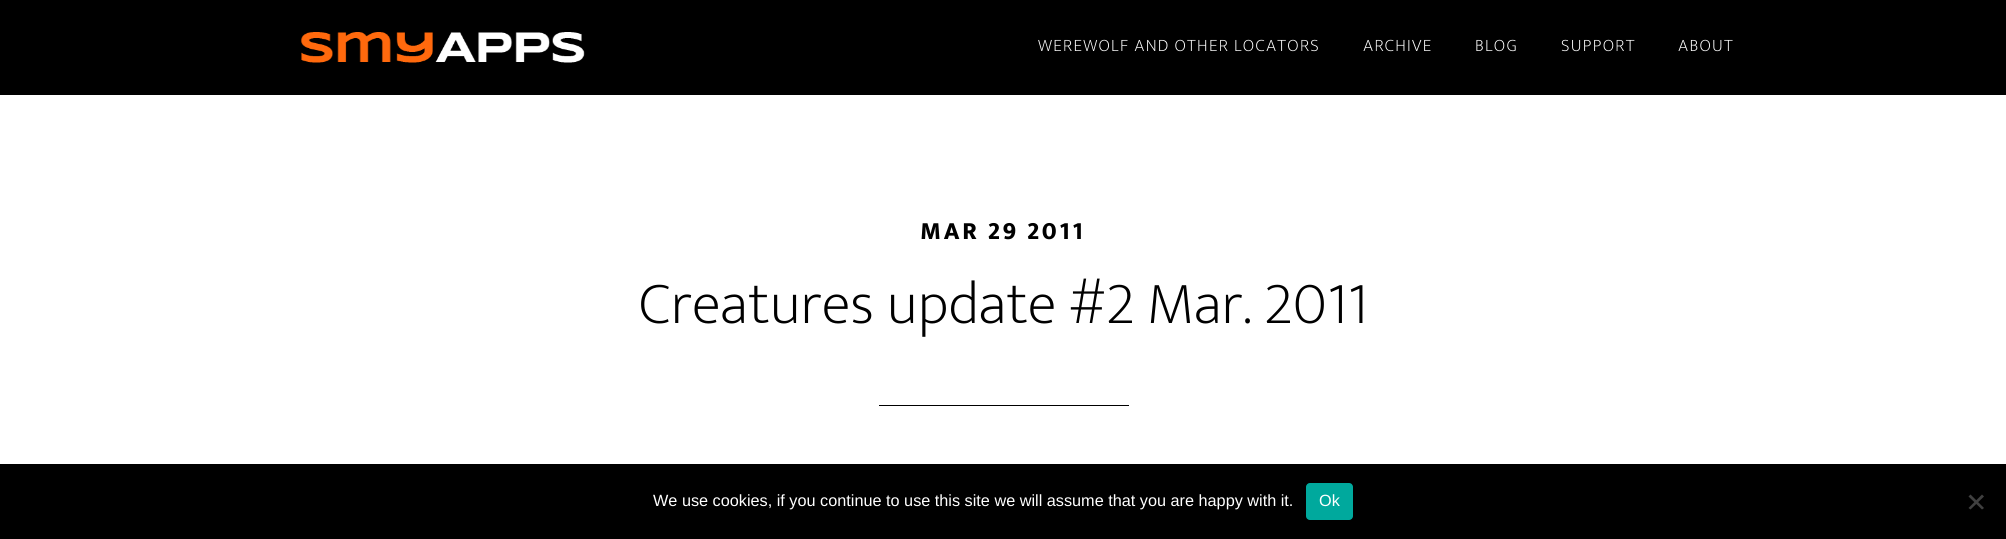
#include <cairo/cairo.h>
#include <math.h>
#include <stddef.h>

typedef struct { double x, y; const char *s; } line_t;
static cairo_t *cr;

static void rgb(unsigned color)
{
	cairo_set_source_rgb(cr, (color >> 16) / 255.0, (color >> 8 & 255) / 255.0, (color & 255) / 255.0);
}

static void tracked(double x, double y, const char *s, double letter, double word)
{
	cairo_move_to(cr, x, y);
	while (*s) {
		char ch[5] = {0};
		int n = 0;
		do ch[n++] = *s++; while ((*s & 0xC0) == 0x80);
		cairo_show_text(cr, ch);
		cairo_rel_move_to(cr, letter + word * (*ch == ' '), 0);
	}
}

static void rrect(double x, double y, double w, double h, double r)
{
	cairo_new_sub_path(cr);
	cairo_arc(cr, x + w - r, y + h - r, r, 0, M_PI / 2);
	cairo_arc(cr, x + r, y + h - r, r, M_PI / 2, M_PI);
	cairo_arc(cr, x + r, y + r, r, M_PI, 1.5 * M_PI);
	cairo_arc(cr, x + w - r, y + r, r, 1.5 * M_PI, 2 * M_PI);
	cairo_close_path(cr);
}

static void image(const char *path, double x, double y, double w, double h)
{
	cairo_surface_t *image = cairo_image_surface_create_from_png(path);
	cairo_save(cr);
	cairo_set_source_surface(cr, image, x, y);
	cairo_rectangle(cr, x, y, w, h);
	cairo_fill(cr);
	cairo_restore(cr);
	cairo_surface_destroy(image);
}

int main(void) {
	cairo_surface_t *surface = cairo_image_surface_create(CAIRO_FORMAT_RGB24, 2006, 539);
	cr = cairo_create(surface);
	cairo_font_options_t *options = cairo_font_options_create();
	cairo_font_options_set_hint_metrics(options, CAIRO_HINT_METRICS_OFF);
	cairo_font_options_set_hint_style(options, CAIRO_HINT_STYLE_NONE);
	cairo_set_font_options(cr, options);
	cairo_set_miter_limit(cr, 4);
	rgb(0xffffff);
	cairo_paint(cr);
	rgb(0x000000);
	cairo_rectangle(cr, 0, 0, 2006, 95);
	cairo_fill(cr);
	image("img/1.png", 300, 32, 285, 31);
	cairo_rectangle(cr, 879, 405, 250, 1);
	cairo_fill(cr);
	cairo_rectangle(cr, 0, 464, 2006, 75);
	cairo_fill(cr);
	rgb(0x00a99d);
	rrect(1306, 483, 47, 37, 4);
	cairo_fill(cr);
	rgb(0x404040);
	cairo_new_path(cr);
	cairo_move_to(cr, 1982, 494.5);
	cairo_line_to(cr, 1984, 496.5);
	cairo_line_to(cr, 1970.5, 509.5);
	cairo_line_to(cr, 1968.5, 508);
	cairo_close_path(cr);
	cairo_fill(cr);
	cairo_new_path(cr);
	cairo_move_to(cr, 1968.5, 496.5);
	cairo_line_to(cr, 1970.5, 494.5);
	cairo_line_to(cr, 1984, 508);
	cairo_line_to(cr, 1982, 509.5);
	cairo_close_path(cr);
	cairo_fill(cr);
	cairo_select_font_face(cr, "Ek Mukta ExtraLight", CAIRO_FONT_SLANT_NORMAL, CAIRO_FONT_WEIGHT_NORMAL);
	cairo_set_font_size(cr, 17.5);
	rgb(0xffffff);
	{
		static const line_t items[] = {
			{1038, 51, "WEREWOLF AND OTHER LOCATORS"},
			{1363, 51, "ARCHIVE"},
			{1475, 51, "BLOG"},
			{1561, 51, "SUPPORT"},
			{1678, 51, "ABOUT"},
		};
		for (size_t i = 0; i < sizeof items / sizeof *items; i++) {
			tracked(items[i].x, items[i].y, items[i].s, 1.25, 0);
		}
	}
	cairo_select_font_face(cr, "Ek Mukta ExtraBold", CAIRO_FONT_SLANT_NORMAL, CAIRO_FONT_WEIGHT_NORMAL);
	cairo_set_font_size(cr, 25);
	rgb(0x000000);
	tracked(920, 239, "MAR 29 2011", 2.5, 0);
	cairo_select_font_face(cr, "Ek Mukta ExtraLight", CAIRO_FONT_SLANT_NORMAL, CAIRO_FONT_WEIGHT_NORMAL);
	cairo_set_font_size(cr, 60);
	cairo_move_to(cr, 639, 323);
	cairo_show_text(cr, "Creatures update #2 Mar. 2011");
	cairo_select_font_face(cr, "Liberation Sans", CAIRO_FONT_SLANT_NORMAL, CAIRO_FONT_WEIGHT_NORMAL);
	cairo_set_font_size(cr, 16.25);
	rgb(0xffffff);
	cairo_move_to(cr, 653, 506);
	cairo_show_text(cr, "We use cookies, if you continue to use this site we will assume that you are happy with it.");
	cairo_move_to(cr, 1319, 506);
	cairo_show_text(cr, "Ok");
	cairo_surface_write_to_png(surface, "page.png");
	cairo_font_options_destroy(options);
	cairo_destroy(cr);
	cairo_surface_destroy(surface);
	return 0;
}
